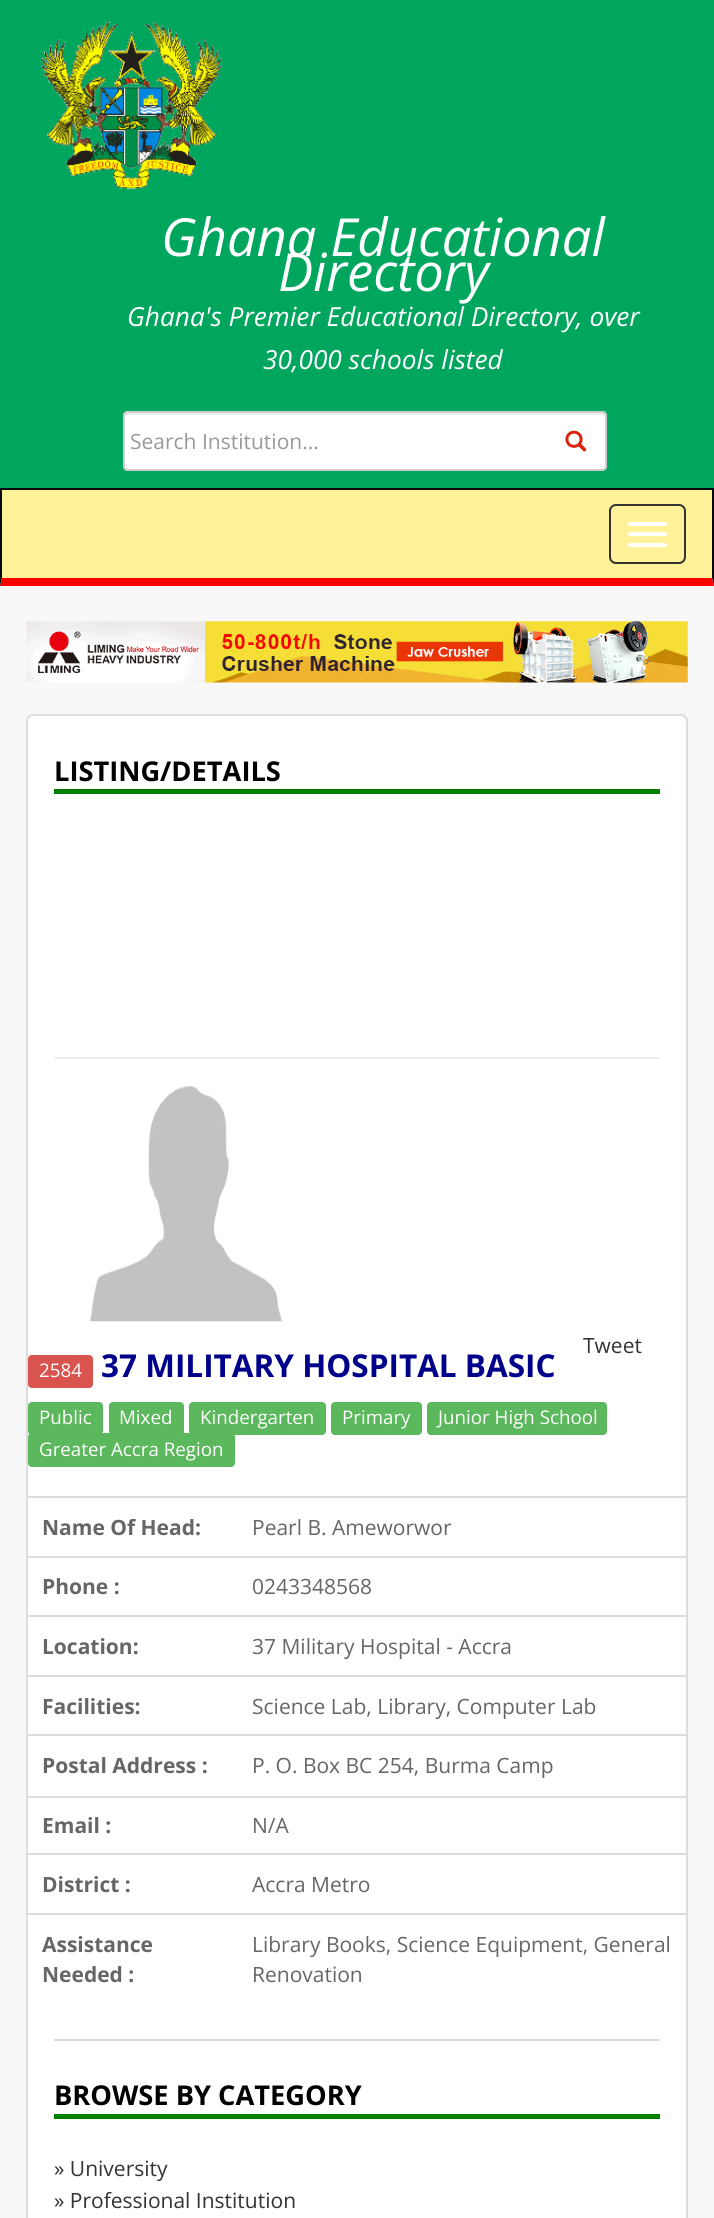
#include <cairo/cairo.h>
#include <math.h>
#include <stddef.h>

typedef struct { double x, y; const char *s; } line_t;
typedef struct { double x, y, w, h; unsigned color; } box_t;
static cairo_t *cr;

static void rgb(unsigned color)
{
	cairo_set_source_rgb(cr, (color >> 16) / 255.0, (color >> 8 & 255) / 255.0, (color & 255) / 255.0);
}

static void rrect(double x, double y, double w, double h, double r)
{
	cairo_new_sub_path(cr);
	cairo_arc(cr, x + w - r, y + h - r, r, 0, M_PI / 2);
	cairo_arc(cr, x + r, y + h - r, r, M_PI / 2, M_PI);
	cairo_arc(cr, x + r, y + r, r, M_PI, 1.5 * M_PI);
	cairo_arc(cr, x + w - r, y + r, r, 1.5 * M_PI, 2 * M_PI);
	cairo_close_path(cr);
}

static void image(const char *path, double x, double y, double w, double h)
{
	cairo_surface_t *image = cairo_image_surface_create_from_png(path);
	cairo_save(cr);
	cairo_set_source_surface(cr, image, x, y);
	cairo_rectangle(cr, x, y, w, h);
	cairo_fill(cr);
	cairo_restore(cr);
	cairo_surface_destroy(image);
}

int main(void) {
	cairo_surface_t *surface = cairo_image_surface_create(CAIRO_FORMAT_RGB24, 714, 2218);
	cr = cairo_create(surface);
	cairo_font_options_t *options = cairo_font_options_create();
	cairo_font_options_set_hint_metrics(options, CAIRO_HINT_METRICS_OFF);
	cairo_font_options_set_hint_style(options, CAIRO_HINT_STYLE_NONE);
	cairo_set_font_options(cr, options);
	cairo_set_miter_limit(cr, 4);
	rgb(0xf8f8f8);
	cairo_paint(cr);
	rgb(0x00a65e);
	cairo_rectangle(cr, 0, 0, 714, 488);
	cairo_fill(cr);
	image("img/1.png", 41, 21, 181, 169);
	rgb(0xffffff);
	rrect(123, 411, 484, 60, 5);
	cairo_fill(cr);
	rgb(0xececec);
	cairo_new_path(cr);
	cairo_move_to(cr, 128, 415);
	cairo_line_to(cr, 602, 415);
	cairo_curve_to(cr, 604, 415, 606, 416, 606, 418);
	cairo_curve_to(cr, 606, 415, 605, 413, 602, 413);
	cairo_line_to(cr, 128, 413);
	cairo_curve_to(cr, 125, 413, 124, 415, 124, 418);
	cairo_curve_to(cr, 124, 416, 126, 415, 128, 415);
	cairo_close_path(cr);
	cairo_fill(cr);
	rrect(124, 412, 482, 58, 4);
	rgb(0xcccccc);
	cairo_stroke(cr);
	image("img/2.png", 565, 430, 22, 22);
	rgb(0xfff299);
	cairo_rectangle(cr, 2, 490, 710, 88);
	cairo_fill(cr);
	rgb(0x080808);
	cairo_rectangle(cr, 0, 488, 714, 2);
	cairo_fill(cr);
	cairo_new_path(cr);
	cairo_move_to(cr, 714, 488);
	cairo_line_to(cr, 714, 586);
	cairo_line_to(cr, 712, 578);
	cairo_line_to(cr, 712, 490);
	cairo_close_path(cr);
	cairo_fill(cr);
	rgb(0xff0000);
	cairo_new_path(cr);
	cairo_move_to(cr, 714, 586);
	cairo_line_to(cr, 0, 586);
	cairo_line_to(cr, 2, 578);
	cairo_line_to(cr, 712, 578);
	cairo_close_path(cr);
	cairo_fill(cr);
	rgb(0x080808);
	cairo_new_path(cr);
	cairo_move_to(cr, 0, 586);
	cairo_line_to(cr, 0, 488);
	cairo_line_to(cr, 2, 490);
	cairo_line_to(cr, 2, 578);
	cairo_close_path(cr);
	cairo_fill(cr);
	rrect(610, 505, 75, 58, 6);
	rgb(0x333333);
	cairo_stroke(cr);
	rgb(0xffffff);
	rrect(628, 522, 39, 4, 2);
	cairo_fill(cr);
	rrect(628, 532, 39, 4, 2);
	cairo_fill(cr);
	rrect(628, 543, 39, 4, 2);
	cairo_fill(cr);
	image("img/3.png", 26, 621, 662, 62);
	rrect(27, 715, 660, 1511, 6);
	cairo_fill_preserve(cr);
	rgb(0xdddddd);
	cairo_stroke(cr);
	rgb(0x008000);
	cairo_rectangle(cr, 54, 789, 606, 5);
	cairo_fill(cr);
	rgb(0xeeeeee);
	cairo_rectangle(cr, 54, 1057, 606, 2);
	cairo_fill(cr);
	image("img/4.png", 90, 1086, 192, 236);
	rgb(0xd9534f);
	rrect(28, 1355, 65, 33, 4);
	cairo_fill(cr);
	rgb(0x5cb85c);
	rrect(28, 1402, 75, 33, 4);
	cairo_fill(cr);
	rrect(109, 1402, 75, 33, 4);
	cairo_fill(cr);
	rrect(189, 1402, 137, 33, 4);
	cairo_fill(cr);
	rrect(331, 1402, 91, 33, 4);
	cairo_fill(cr);
	rrect(427, 1402, 180, 33, 4);
	cairo_fill(cr);
	rrect(28, 1433, 207, 34, 4);
	cairo_fill(cr);
	{
		static const box_t items[] = {
			{28, 1496, 660, 2, 0xdddddd},
			{28, 1556, 660, 2, 0xdddddd},
			{28, 1615, 660, 2, 0xdddddd},
			{28, 1675, 660, 2, 0xdddddd},
			{28, 1734, 660, 2, 0xdddddd},
			{28, 1796, 660, 2, 0xdddddd},
			{28, 1853, 660, 2, 0xdddddd},
			{28, 1913, 660, 2, 0xdddddd},
			{54, 2039, 606, 2, 0xdddddd},
			{54, 2114, 606, 5, 0x008000},
		};
		for (size_t i = 0; i < sizeof items / sizeof *items; i++) {
			rgb(items[i].color);
			cairo_rectangle(cr, items[i].x, items[i].y, items[i].w, items[i].h);
			cairo_fill(cr);
		}
	}
	cairo_select_font_face(cr, "Open Sans", CAIRO_FONT_SLANT_ITALIC, CAIRO_FONT_WEIGHT_NORMAL);
	cairo_set_font_size(cr, 52.5);
	rgb(0xffffff);
	cairo_move_to(cr, 161, 256);
	cairo_show_text(cr, "Ghana Educational");
	cairo_move_to(cr, 278, 291);
	cairo_show_text(cr, "Directory");
	cairo_set_font_size(cr, 26.25);
	cairo_move_to(cr, 127, 326);
	cairo_show_text(cr, "Ghana's Premier Educational Directory, over");
	cairo_move_to(cr, 263, 369);
	cairo_show_text(cr, "30,000 schools listed");
	cairo_select_font_face(cr, "Open Sans", CAIRO_FONT_SLANT_NORMAL, CAIRO_FONT_WEIGHT_NORMAL);
	cairo_set_font_size(cr, 21);
	rgb(0x999999);
	cairo_move_to(cr, 130, 449);
	cairo_show_text(cr, "Search Institution...");
	cairo_select_font_face(cr, "Open Sans", CAIRO_FONT_SLANT_NORMAL, CAIRO_FONT_WEIGHT_BOLD);
	cairo_set_font_size(cr, 27.25);
	rgb(0x000000);
	cairo_move_to(cr, 54, 781);
	cairo_show_text(cr, "LISTING/DETAILS");
	cairo_select_font_face(cr, "Open Sans", CAIRO_FONT_SLANT_NORMAL, CAIRO_FONT_WEIGHT_NORMAL);
	cairo_set_font_size(cr, 21);
	rgb(0x333333);
	cairo_move_to(cr, 583, 1353);
	cairo_show_text(cr, "Tweet");
	cairo_set_font_size(cr, 18.75);
	rgb(0xffffff);
	cairo_move_to(cr, 39, 1377);
	cairo_show_text(cr, "2584");
	cairo_select_font_face(cr, "Open Sans", CAIRO_FONT_SLANT_NORMAL, CAIRO_FONT_WEIGHT_BOLD);
	cairo_set_font_size(cr, 31.5);
	rgb(0x00008b);
	cairo_move_to(cr, 101, 1377);
	cairo_show_text(cr, "37 MILITARY HOSPITAL BASIC");
	cairo_select_font_face(cr, "Open Sans", CAIRO_FONT_SLANT_NORMAL, CAIRO_FONT_WEIGHT_NORMAL);
	cairo_set_font_size(cr, 18.75);
	rgb(0xffffff);
	{
		static const line_t items[] = {
			{39, 1424, "Public"},
			{119, 1424, "Mixed"},
			{200, 1424, "Kindergarten"},
			{342, 1424, "Primary"},
			{438, 1424, "Junior High School"},
			{39, 1456, "Greater Accra Region"},
		};
		for (size_t i = 0; i < sizeof items / sizeof *items; i++) {
			cairo_move_to(cr, items[i].x, items[i].y);
			cairo_show_text(cr, items[i].s);
		}
	}
	cairo_select_font_face(cr, "Open Sans", CAIRO_FONT_SLANT_NORMAL, CAIRO_FONT_WEIGHT_BOLD);
	cairo_set_font_size(cr, 21);
	rgb(0x666666);
	cairo_move_to(cr, 42, 1535);
	cairo_show_text(cr, "Name Of Head:");
	cairo_select_font_face(cr, "Open Sans", CAIRO_FONT_SLANT_NORMAL, CAIRO_FONT_WEIGHT_NORMAL);
	cairo_move_to(cr, 252, 1535);
	cairo_show_text(cr, "Pearl B. Ameworwor");
	cairo_select_font_face(cr, "Open Sans", CAIRO_FONT_SLANT_NORMAL, CAIRO_FONT_WEIGHT_BOLD);
	cairo_move_to(cr, 42, 1594);
	cairo_show_text(cr, "Phone :");
	cairo_select_font_face(cr, "Open Sans", CAIRO_FONT_SLANT_NORMAL, CAIRO_FONT_WEIGHT_NORMAL);
	cairo_move_to(cr, 252, 1594);
	cairo_show_text(cr, "0243348568");
	cairo_select_font_face(cr, "Open Sans", CAIRO_FONT_SLANT_NORMAL, CAIRO_FONT_WEIGHT_BOLD);
	cairo_move_to(cr, 42, 1654);
	cairo_show_text(cr, "Location:");
	cairo_select_font_face(cr, "Open Sans", CAIRO_FONT_SLANT_NORMAL, CAIRO_FONT_WEIGHT_NORMAL);
	cairo_move_to(cr, 252, 1654);
	cairo_show_text(cr, "37 Military Hospital - Accra");
	cairo_select_font_face(cr, "Open Sans", CAIRO_FONT_SLANT_NORMAL, CAIRO_FONT_WEIGHT_BOLD);
	cairo_move_to(cr, 42, 1714);
	cairo_show_text(cr, "Facilities:");
	cairo_select_font_face(cr, "Open Sans", CAIRO_FONT_SLANT_NORMAL, CAIRO_FONT_WEIGHT_NORMAL);
	cairo_move_to(cr, 252, 1714);
	cairo_show_text(cr, "Science Lab, Library, Computer Lab");
	cairo_select_font_face(cr, "Open Sans", CAIRO_FONT_SLANT_NORMAL, CAIRO_FONT_WEIGHT_BOLD);
	cairo_move_to(cr, 42, 1773);
	cairo_show_text(cr, "Postal Address :");
	cairo_select_font_face(cr, "Open Sans", CAIRO_FONT_SLANT_NORMAL, CAIRO_FONT_WEIGHT_NORMAL);
	cairo_move_to(cr, 252, 1773);
	cairo_show_text(cr, "P. O. Box BC 254, Burma Camp");
	cairo_select_font_face(cr, "Open Sans", CAIRO_FONT_SLANT_NORMAL, CAIRO_FONT_WEIGHT_BOLD);
	cairo_move_to(cr, 42, 1833);
	cairo_show_text(cr, "Email :");
	cairo_select_font_face(cr, "Open Sans", CAIRO_FONT_SLANT_NORMAL, CAIRO_FONT_WEIGHT_NORMAL);
	cairo_move_to(cr, 252, 1833);
	cairo_show_text(cr, "N/A");
	cairo_select_font_face(cr, "Open Sans", CAIRO_FONT_SLANT_NORMAL, CAIRO_FONT_WEIGHT_BOLD);
	cairo_move_to(cr, 42, 1892);
	cairo_show_text(cr, "District :");
	cairo_select_font_face(cr, "Open Sans", CAIRO_FONT_SLANT_NORMAL, CAIRO_FONT_WEIGHT_NORMAL);
	cairo_move_to(cr, 252, 1892);
	cairo_show_text(cr, "Accra Metro");
	cairo_select_font_face(cr, "Open Sans", CAIRO_FONT_SLANT_NORMAL, CAIRO_FONT_WEIGHT_BOLD);
	cairo_move_to(cr, 42, 1952);
	cairo_show_text(cr, "Assistance");
	cairo_move_to(cr, 42, 1982);
	cairo_show_text(cr, "Needed :");
	cairo_select_font_face(cr, "Open Sans", CAIRO_FONT_SLANT_NORMAL, CAIRO_FONT_WEIGHT_NORMAL);
	cairo_move_to(cr, 252, 1952);
	cairo_show_text(cr, "Library Books, Science Equipment, General");
	cairo_move_to(cr, 252, 1982);
	cairo_show_text(cr, "Renovation");
	cairo_select_font_face(cr, "Open Sans", CAIRO_FONT_SLANT_NORMAL, CAIRO_FONT_WEIGHT_BOLD);
	cairo_set_font_size(cr, 27.25);
	rgb(0x000000);
	cairo_move_to(cr, 54, 2105);
	cairo_show_text(cr, "BROWSE BY CATEGORY");
	cairo_select_font_face(cr, "Open Sans", CAIRO_FONT_SLANT_NORMAL, CAIRO_FONT_WEIGHT_NORMAL);
	cairo_set_font_size(cr, 21);
	rgb(0x333333);
	cairo_move_to(cr, 54, 2176);
	cairo_show_text(cr, "» University");
	cairo_move_to(cr, 54, 2208);
	cairo_show_text(cr, "» Professional Institution");
	cairo_surface_write_to_png(surface, "page.png");
	cairo_font_options_destroy(options);
	cairo_destroy(cr);
	cairo_surface_destroy(surface);
	return 0;
}
